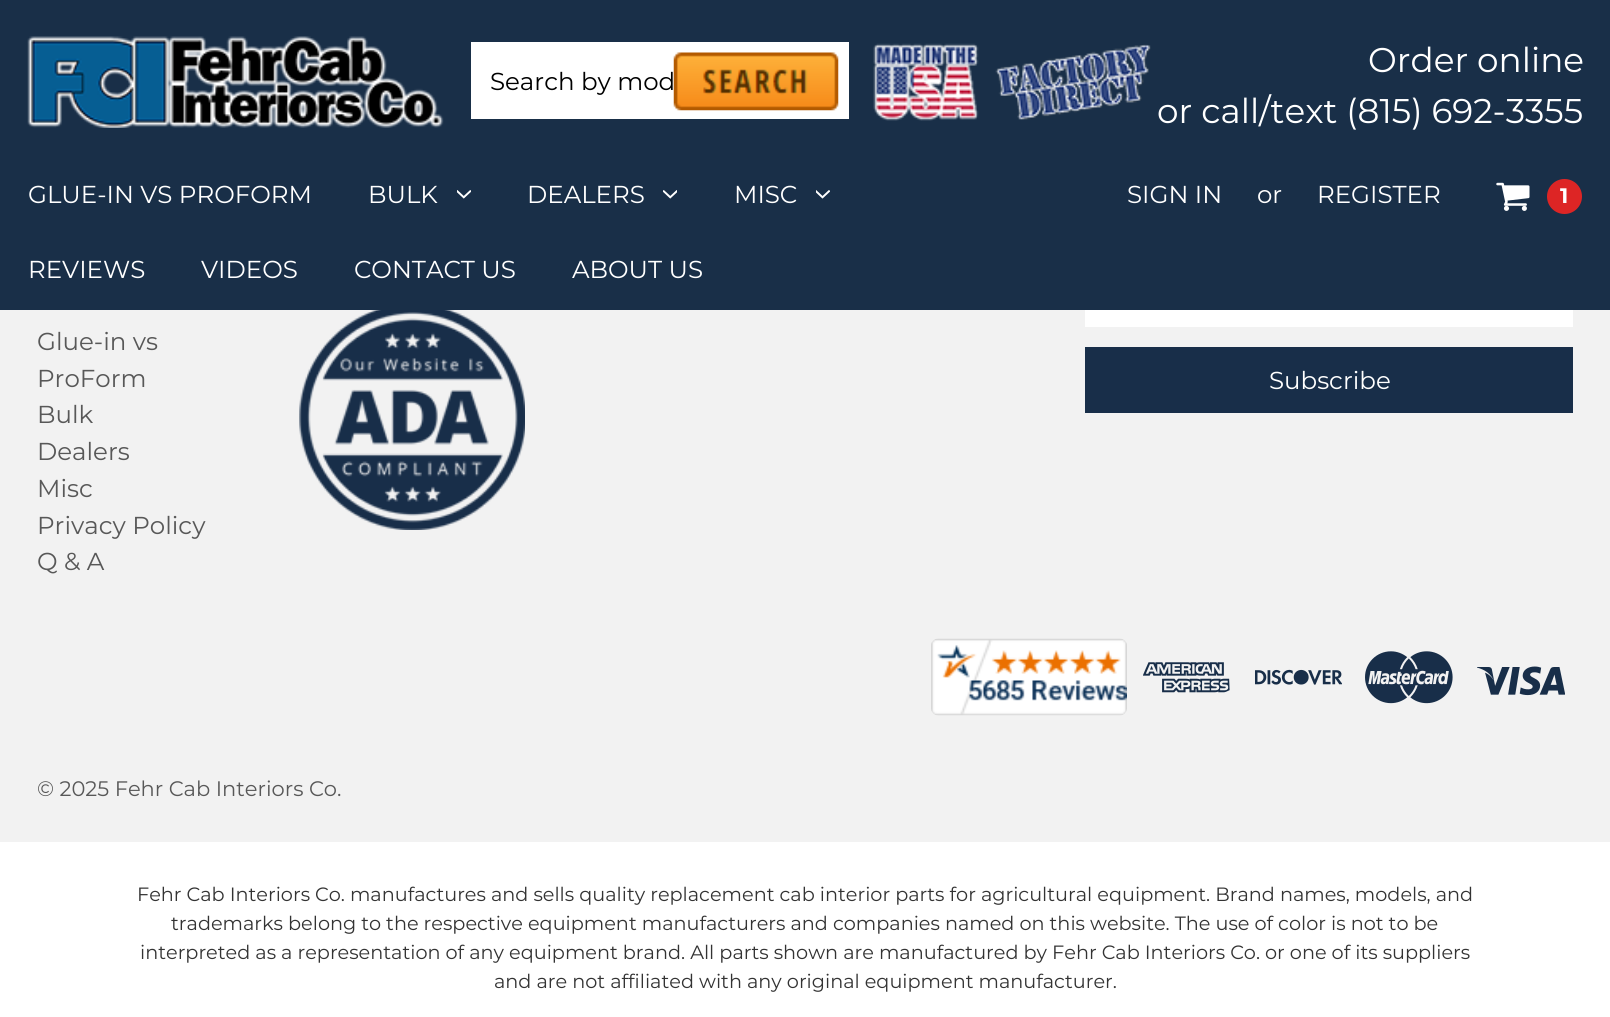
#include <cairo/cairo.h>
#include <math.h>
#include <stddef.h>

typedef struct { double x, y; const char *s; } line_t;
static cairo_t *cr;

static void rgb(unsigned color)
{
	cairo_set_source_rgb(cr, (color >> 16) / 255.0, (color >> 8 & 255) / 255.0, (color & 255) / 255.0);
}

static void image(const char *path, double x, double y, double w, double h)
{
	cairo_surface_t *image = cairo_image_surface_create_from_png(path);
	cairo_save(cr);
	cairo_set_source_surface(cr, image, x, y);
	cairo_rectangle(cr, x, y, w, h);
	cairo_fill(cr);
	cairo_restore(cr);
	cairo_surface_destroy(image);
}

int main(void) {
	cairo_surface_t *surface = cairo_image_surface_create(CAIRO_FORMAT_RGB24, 1610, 1017);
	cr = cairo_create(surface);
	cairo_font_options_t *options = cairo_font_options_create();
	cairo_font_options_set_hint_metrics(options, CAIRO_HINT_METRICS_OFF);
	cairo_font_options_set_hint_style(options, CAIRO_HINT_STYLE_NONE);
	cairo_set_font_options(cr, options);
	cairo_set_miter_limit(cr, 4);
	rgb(0xffffff);
	cairo_paint(cr);
	rgb(0x192f48);
	cairo_rectangle(cr, 0, 0, 1610, 310);
	cairo_fill(cr);
	image("img/1.png", 27, 36, 417, 92);
	rgb(0xffffff);
	cairo_rectangle(cr, 471, 42, 378, 77);
	cairo_fill(cr);
	image("img/2.png", 673, 52, 166, 59);
	image("img/3.png", 873, 43, 106, 78);
	image("img/4.png", 995, 44, 156, 76);
	image("img/5.png", 457, 190, 14, 9);
	image("img/6.png", 663, 190, 14, 9);
	image("img/7.png", 816, 190, 14, 9);
	image("img/8.png", 1496, 182, 34, 29);
	rgb(0xdd2525);
	cairo_arc(cr, 1564.5, 196.5, 17.5, 0, 2 * M_PI);
	cairo_fill(cr);
	rgb(0xf2f2f2);
	cairo_rectangle(cr, 0, 310, 1610, 532);
	cairo_fill(cr);
	image("img/9.png", 299, 310, 226, 220);
	rgb(0xffffff);
	cairo_rectangle(cr, 1085, 310, 488, 17);
	cairo_fill(cr);
	rgb(0x182e49);
	cairo_rectangle(cr, 1085, 347, 488, 66);
	cairo_fill(cr);
	image("img/10.png", 931, 638, 196, 78);
	image("img/11.png", 1143, 662, 87, 31);
	image("img/12.png", 1255, 669, 87, 16);
	image("img/13.png", 1365, 651, 88, 53);
	image("img/14.png", 1477, 666, 88, 30);
	cairo_select_font_face(cr, "Montserrat Thin", CAIRO_FONT_SLANT_NORMAL, CAIRO_FONT_WEIGHT_NORMAL);
	cairo_set_font_size(cr, 24.5);
	rgb(0x000000);
	cairo_move_to(cr, 490, 90);
	cairo_show_text(cr, "Search by mod");
	cairo_set_font_size(cr, 34.25);
	rgb(0xffffff);
	cairo_move_to(cr, 1368, 72);
	cairo_show_text(cr, "Order online");
	cairo_move_to(cr, 1157, 123);
	cairo_show_text(cr, "or call/text (815) 692-3355");
	cairo_set_font_size(cr, 24.5);
	{
		static const line_t items[] = {
			{28, 203, "GLUE-IN VS PROFORM"},
			{368, 203, "BULK"},
			{527, 203, "DEALERS"},
			{734, 203, "MISC"},
			{28, 278, "REVIEWS"},
			{201, 278, "VIDEOS"},
			{354, 278, "CONTACT US"},
			{572, 278, "ABOUT US"},
			{1127, 203, "SIGN IN"},
			{1257, 203, "or"},
			{1317, 203, "REGISTER"},
		};
		for (size_t i = 0; i < sizeof items / sizeof *items; i++) {
			cairo_move_to(cr, items[i].x, items[i].y);
			cairo_show_text(cr, items[i].s);
		}
	}
	cairo_select_font_face(cr, "Montserrat", CAIRO_FONT_SLANT_NORMAL, CAIRO_FONT_WEIGHT_BOLD);
	cairo_set_font_size(cr, 21);
	cairo_move_to(cr, 1560, 203);
	cairo_show_text(cr, "1");
	cairo_select_font_face(cr, "Montserrat Thin", CAIRO_FONT_SLANT_NORMAL, CAIRO_FONT_WEIGHT_NORMAL);
	cairo_set_font_size(cr, 24.5);
	rgb(0x585858);
	{
		static const line_t items[] = {
			{37, 350, "Glue-in vs"},
			{37, 387, "ProForm"},
			{37, 423, "Bulk"},
			{37, 460, "Dealers"},
			{37, 497, "Misc"},
			{37, 534, "Privacy Policy"},
			{37, 570, "Q & A"},
		};
		for (size_t i = 0; i < sizeof items / sizeof *items; i++) {
			cairo_move_to(cr, items[i].x, items[i].y);
			cairo_show_text(cr, items[i].s);
		}
	}
	rgb(0xffffff);
	cairo_move_to(cr, 1269, 389);
	cairo_show_text(cr, "Subscribe");
	cairo_set_font_size(cr, 21);
	rgb(0x585858);
	cairo_move_to(cr, 37, 796);
	cairo_show_text(cr, "© 2025 Fehr Cab Interiors Co.");
	cairo_set_font_size(cr, 19.25);
	rgb(0x333333);
	{
		static const line_t items[] = {
			{137, 901, "Fehr Cab Interiors Co. manufactures and sells quality replacement cab interior parts for agricultural equipment. Brand names, models, and"},
			{171, 930, "trademarks belong to the respective equipment manufacturers and companies named on this website. The use of color is not to be"},
			{140, 959, "interpreted as a representation of any equipment brand. All parts shown are manufactured by Fehr Cab Interiors Co. or one of its suppliers"},
			{494, 988, "and are not affiliated with any original equipment manufacturer."},
		};
		for (size_t i = 0; i < sizeof items / sizeof *items; i++) {
			cairo_move_to(cr, items[i].x, items[i].y);
			cairo_show_text(cr, items[i].s);
		}
	}
	cairo_surface_write_to_png(surface, "page.png");
	cairo_font_options_destroy(options);
	cairo_destroy(cr);
	cairo_surface_destroy(surface);
	return 0;
}
